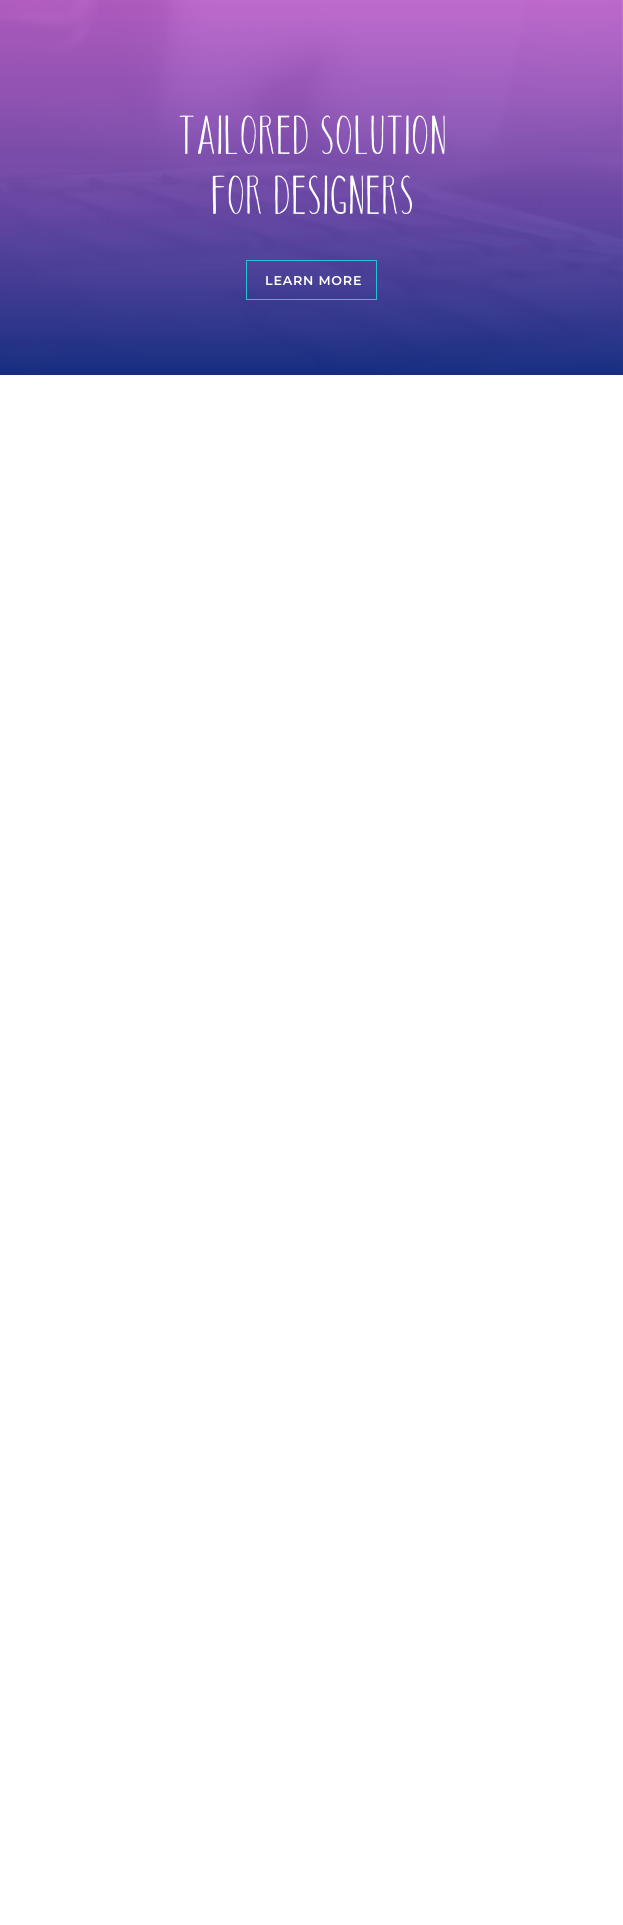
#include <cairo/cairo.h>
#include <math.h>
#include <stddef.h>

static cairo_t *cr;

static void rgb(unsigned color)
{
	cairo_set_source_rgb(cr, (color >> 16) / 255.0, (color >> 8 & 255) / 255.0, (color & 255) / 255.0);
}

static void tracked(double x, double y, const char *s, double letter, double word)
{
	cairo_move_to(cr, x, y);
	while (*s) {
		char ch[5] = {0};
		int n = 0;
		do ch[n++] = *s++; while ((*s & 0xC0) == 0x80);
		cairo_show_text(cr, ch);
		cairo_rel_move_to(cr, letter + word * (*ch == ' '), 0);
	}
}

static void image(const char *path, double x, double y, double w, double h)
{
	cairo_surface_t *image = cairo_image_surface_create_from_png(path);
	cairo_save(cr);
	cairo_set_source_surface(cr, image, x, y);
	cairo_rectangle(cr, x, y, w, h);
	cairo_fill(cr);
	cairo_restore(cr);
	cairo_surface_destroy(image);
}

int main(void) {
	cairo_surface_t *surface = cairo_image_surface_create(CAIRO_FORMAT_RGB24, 623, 1925);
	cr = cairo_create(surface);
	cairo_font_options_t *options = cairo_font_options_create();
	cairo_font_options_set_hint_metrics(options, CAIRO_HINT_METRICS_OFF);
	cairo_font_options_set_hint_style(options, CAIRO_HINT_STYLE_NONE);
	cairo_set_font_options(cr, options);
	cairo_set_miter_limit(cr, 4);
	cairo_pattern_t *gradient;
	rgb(0xffffff);
	cairo_paint(cr);
	image("img/1.png", 0, 0, 623, 375);
	gradient = cairo_pattern_create_linear(312, 0, 312, 375);
	cairo_pattern_add_color_stop_rgba(gradient, 0, 0.922, 0.478, 1, 0.73);
	cairo_pattern_add_color_stop_rgba(gradient, 1, 0.086, 0.188, 0.529, 0.94);
	cairo_set_source(cr, gradient);
	cairo_pattern_destroy(gradient);
	cairo_rectangle(cr, 0, 0, 623, 375);
	cairo_fill(cr);
	cairo_rectangle(cr, 246.5, 260.5, 130, 39);
	rgb(0x23c3d1);
	cairo_set_line_width(cr, 1);
	cairo_stroke(cr);
	cairo_select_font_face(cr, "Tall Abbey", CAIRO_FONT_SLANT_NORMAL, CAIRO_FONT_WEIGHT_NORMAL);
	cairo_set_font_size(cr, 55);
	rgb(0xffffff);
	tracked(177, 154, "TAILORED SOLUTION", -1.1, 0);
	tracked(210, 214, "FOR DESIGNERS", -1.1, 0);
	cairo_select_font_face(cr, "Montserrat Thin", CAIRO_FONT_SLANT_NORMAL, CAIRO_FONT_WEIGHT_NORMAL);
	cairo_set_font_size(cr, 12.75);
	tracked(265, 285, "LEARN MORE", 0.75, 0);
	cairo_surface_write_to_png(surface, "page.png");
	cairo_font_options_destroy(options);
	cairo_destroy(cr);
	cairo_surface_destroy(surface);
	return 0;
}
